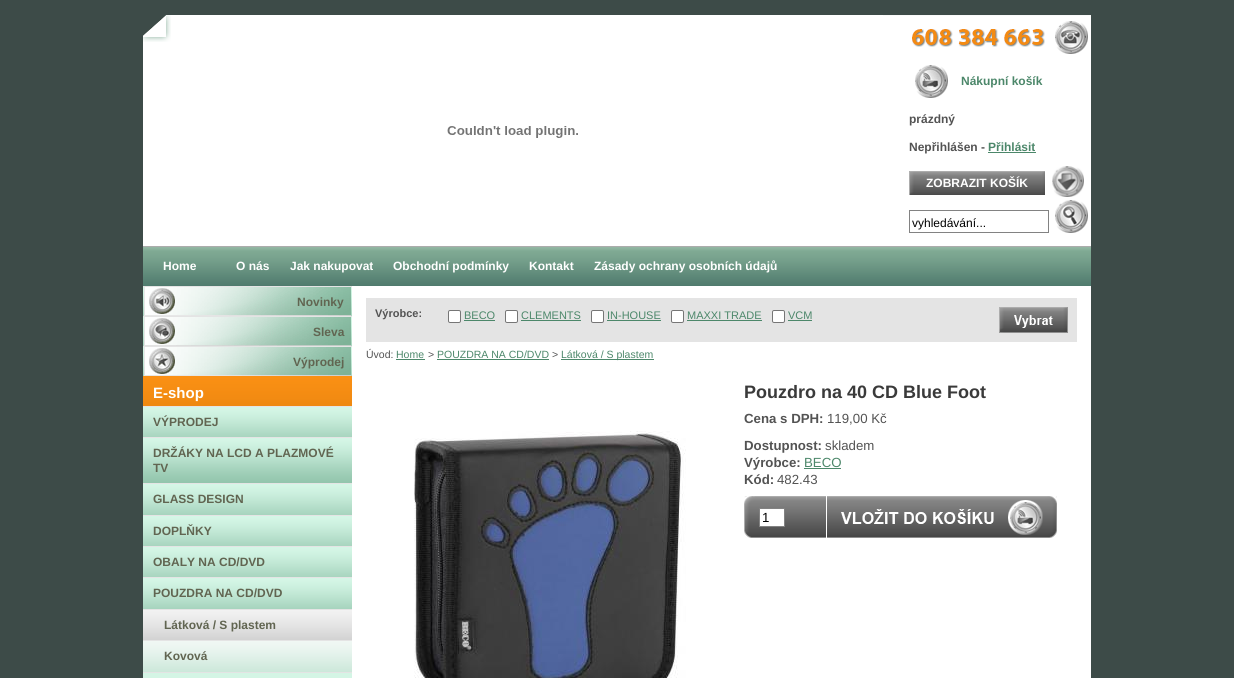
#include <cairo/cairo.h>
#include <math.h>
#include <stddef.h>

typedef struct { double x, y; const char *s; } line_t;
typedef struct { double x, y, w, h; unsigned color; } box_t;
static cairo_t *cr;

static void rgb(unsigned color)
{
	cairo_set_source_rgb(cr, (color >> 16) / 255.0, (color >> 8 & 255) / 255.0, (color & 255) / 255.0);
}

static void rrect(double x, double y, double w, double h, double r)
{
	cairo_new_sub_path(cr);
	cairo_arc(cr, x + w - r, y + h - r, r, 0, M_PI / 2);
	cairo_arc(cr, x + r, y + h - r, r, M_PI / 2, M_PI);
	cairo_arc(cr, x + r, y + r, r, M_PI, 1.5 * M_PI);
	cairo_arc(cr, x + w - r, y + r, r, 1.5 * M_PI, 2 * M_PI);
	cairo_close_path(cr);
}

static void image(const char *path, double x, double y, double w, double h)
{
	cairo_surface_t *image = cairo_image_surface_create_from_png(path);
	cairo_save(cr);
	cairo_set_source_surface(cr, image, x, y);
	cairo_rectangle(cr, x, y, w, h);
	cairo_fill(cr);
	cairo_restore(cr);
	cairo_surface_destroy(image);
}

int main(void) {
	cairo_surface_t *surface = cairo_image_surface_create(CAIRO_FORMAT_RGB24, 1234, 678);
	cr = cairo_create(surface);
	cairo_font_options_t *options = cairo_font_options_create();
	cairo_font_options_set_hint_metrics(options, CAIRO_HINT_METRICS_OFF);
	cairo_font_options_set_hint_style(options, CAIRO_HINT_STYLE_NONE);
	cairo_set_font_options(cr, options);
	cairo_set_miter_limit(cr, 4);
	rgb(0x3d4b48);
	cairo_paint(cr);
	rgb(0xffffff);
	cairo_rectangle(cr, 143, 15, 948, 663);
	cairo_fill(cr);
	image("img/1.png", 143, 15, 28, 27);
	image("img/2.png", 447, 126, 131, 12);
	image("img/3.png", 883, 15, 208, 83);
	rgb(0x4c876a);
	cairo_rectangle(cr, 988, 152, 48, 1);
	cairo_fill(cr);
	image("img/4.png", 909, 171, 136, 24);
	image("img/5.png", 1052, 166, 32, 31);
	cairo_rectangle(cr, 909.5, 210.5, 139, 22);
	rgb(0x828282);
	cairo_set_line_width(cr, 1);
	cairo_stroke(cr);
	image("img/6.png", 1055, 200, 33, 33);
	image("img/7.png", 143, 246, 948, 40);
	image("img/8.png", 143, 287, 209, 29);
	rgb(0xe4e4e4);
	cairo_rectangle(cr, 143, 286, 209, 1);
	cairo_fill(cr);
	image("img/9.png", 144, 287, 207, 29);
	image("img/8.png", 143, 317, 209, 29);
	cairo_rectangle(cr, 143, 316, 209, 1);
	cairo_fill(cr);
	image("img/10.png", 144, 317, 207, 29);
	image("img/8.png", 143, 347, 209, 29);
	cairo_rectangle(cr, 143, 346, 209, 1);
	cairo_fill(cr);
	image("img/11.png", 144, 347, 207, 29);
	image("img/12.png", 143, 376, 209, 30);
	image("img/13.png", 143, 407, 209, 30);
	cairo_rectangle(cr, 143, 406, 209, 1);
	cairo_fill(cr);
	image("img/14.png", 143, 438, 209, 45);
	cairo_rectangle(cr, 143, 437, 209, 1);
	cairo_fill(cr);
	image("img/15.png", 143, 484, 209, 31);
	cairo_rectangle(cr, 143, 483, 209, 1);
	cairo_fill(cr);
	image("img/13.png", 143, 516, 209, 30);
	cairo_rectangle(cr, 143, 515, 209, 1);
	cairo_fill(cr);
	image("img/13.png", 143, 547, 209, 30);
	cairo_rectangle(cr, 143, 546, 209, 1);
	cairo_fill(cr);
	image("img/15.png", 143, 578, 209, 31);
	cairo_rectangle(cr, 143, 577, 209, 1);
	cairo_fill(cr);
	image("img/16.png", 143, 610, 209, 30);
	cairo_rectangle(cr, 143, 609, 209, 1);
	cairo_fill(cr);
	image("img/17.png", 143, 641, 209, 31);
	{
		static const box_t items[] = {
			{143, 640, 209, 1, 0xe4e4e4},
			{143, 673, 209, 5, 0xd4f5e5},
			{143, 672, 209, 1, 0xe4e4e4},
			{366, 298, 711, 44, 0xe4e4e4},
		};
		for (size_t i = 0; i < sizeof items / sizeof *items; i++) {
			rgb(items[i].color);
			cairo_rectangle(cr, items[i].x, items[i].y, items[i].w, items[i].h);
			cairo_fill(cr);
		}
	}
	rgb(0xffffff);
	rrect(448.5, 310.5, 12, 12, 1.5);
	cairo_fill_preserve(cr);
	rgb(0x767676);
	cairo_stroke(cr);
	rgb(0x4c876a);
	cairo_rectangle(cr, 464, 320, 31, 1);
	cairo_fill(cr);
	rgb(0xffffff);
	rrect(505.5, 310.5, 12, 12, 1.5);
	cairo_fill_preserve(cr);
	rgb(0x767676);
	cairo_stroke(cr);
	rgb(0x4c876a);
	cairo_rectangle(cr, 521, 320, 60, 1);
	cairo_fill(cr);
	rgb(0xffffff);
	rrect(591.5, 310.5, 12, 12, 1.5);
	cairo_fill_preserve(cr);
	rgb(0x767676);
	cairo_stroke(cr);
	rgb(0x4c876a);
	cairo_rectangle(cr, 607, 320, 54, 1);
	cairo_fill(cr);
	rgb(0xffffff);
	rrect(671.5, 310.5, 12, 12, 1.5);
	cairo_fill_preserve(cr);
	rgb(0x767676);
	cairo_stroke(cr);
	rgb(0x4c876a);
	cairo_rectangle(cr, 687, 320, 75, 1);
	cairo_fill(cr);
	rgb(0xffffff);
	rrect(772.5, 310.5, 12, 12, 1.5);
	cairo_fill_preserve(cr);
	rgb(0x767676);
	cairo_stroke(cr);
	rgb(0x4c876a);
	cairo_rectangle(cr, 788, 320, 24, 1);
	cairo_fill(cr);
	image("img/18.png", 999, 307, 69, 26);
	{
		static const box_t items[] = {
			{396, 359, 29, 1, 0x4c876a},
			{437, 359, 112, 1, 0x4c876a},
			{561, 359, 93, 1, 0x4c876a},
		};
		for (size_t i = 0; i < sizeof items / sizeof *items; i++) {
			rgb(items[i].color);
			cairo_rectangle(cr, items[i].x, items[i].y, items[i].w, items[i].h);
			cairo_fill(cr);
		}
	}
	image("img/19.png", 414, 431, 272, 247);
	cairo_rectangle(cr, 804, 468, 37, 1);
	cairo_fill(cr);
	image("img/20.png", 744, 496, 82, 42);
	rgb(0xffffff);
	cairo_rectangle(cr, 759.5, 508.5, 25, 18);
	cairo_fill_preserve(cr);
	rgb(0x828282);
	cairo_stroke(cr);
	image("img/21.png", 827, 496, 230, 42);
	cairo_select_font_face(cr, "Liberation Sans", CAIRO_FONT_SLANT_NORMAL, CAIRO_FONT_WEIGHT_BOLD);
	cairo_set_font_size(cr, 12);
	rgb(0x4c876a);
	cairo_move_to(cr, 961, 85);
	cairo_show_text(cr, "Nákupní košík");
	rgb(0x535353);
	cairo_move_to(cr, 909, 123);
	cairo_show_text(cr, "prázdný");
	cairo_move_to(cr, 909, 151);
	cairo_show_text(cr, "Nepřihlášen -");
	rgb(0x4c876a);
	cairo_move_to(cr, 988, 151);
	cairo_show_text(cr, "Přihlásit");
	rgb(0xffffff);
	cairo_move_to(cr, 926, 187);
	cairo_show_text(cr, "ZOBRAZIT KOŠÍK");
	cairo_select_font_face(cr, "Liberation Sans", CAIRO_FONT_SLANT_NORMAL, CAIRO_FONT_WEIGHT_NORMAL);
	rgb(0x000000);
	cairo_move_to(cr, 912, 227);
	cairo_show_text(cr, "vyhledávání...");
	cairo_select_font_face(cr, "Liberation Sans", CAIRO_FONT_SLANT_NORMAL, CAIRO_FONT_WEIGHT_BOLD);
	rgb(0xffffff);
	{
		static const line_t items[] = {
			{163, 270, "Home"},
			{236, 270, "O nás"},
			{290, 270, "Jak nakupovat"},
			{393, 270, "Obchodní podmínky"},
			{529, 270, "Kontakt"},
			{594, 270, "Zásady ochrany osobních údajů"},
		};
		for (size_t i = 0; i < sizeof items / sizeof *items; i++) {
			cairo_move_to(cr, items[i].x, items[i].y);
			cairo_show_text(cr, items[i].s);
		}
	}
	rgb(0x616551);
	{
		static const line_t items[] = {
			{297, 306, "Novinky"},
			{313, 336, "Sleva"},
			{293, 366, "Výprodej"},
		};
		for (size_t i = 0; i < sizeof items / sizeof *items; i++) {
			cairo_move_to(cr, items[i].x, items[i].y);
			cairo_show_text(cr, items[i].s);
		}
	}
	cairo_set_font_size(cr, 15);
	rgb(0xffffff);
	cairo_move_to(cr, 153, 398);
	cairo_show_text(cr, "E-shop");
	cairo_set_font_size(cr, 12);
	rgb(0x616551);
	{
		static const line_t items[] = {
			{153, 426, "VÝPRODEJ"},
			{153, 457, "DRŽÁKY NA LCD A PLAZMOVÉ"},
			{153, 472, "TV"},
			{153, 503, "GLASS DESIGN"},
			{153, 535, "DOPLŇKY"},
			{153, 566, "OBALY NA CD/DVD"},
			{153, 597, "POUZDRA NA CD/DVD"},
			{164, 629, "Látková / S plastem"},
			{164, 660, "Kovová"},
		};
		for (size_t i = 0; i < sizeof items / sizeof *items; i++) {
			cairo_move_to(cr, items[i].x, items[i].y);
			cairo_show_text(cr, items[i].s);
		}
	}
	cairo_set_font_size(cr, 11);
	rgb(0x535353);
	cairo_move_to(cr, 375, 317);
	cairo_show_text(cr, "Výrobce:");
	cairo_select_font_face(cr, "Liberation Sans", CAIRO_FONT_SLANT_NORMAL, CAIRO_FONT_WEIGHT_NORMAL);
	rgb(0x4c876a);
	{
		static const line_t items[] = {
			{464, 319, "BECO"},
			{521, 319, "CLEMENTS"},
			{607, 319, "IN-HOUSE"},
			{687, 319, "MAXXI TRADE"},
			{788, 319, "VCM"},
		};
		for (size_t i = 0; i < sizeof items / sizeof *items; i++) {
			cairo_move_to(cr, items[i].x, items[i].y);
			cairo_show_text(cr, items[i].s);
		}
	}
	cairo_set_font_size(cr, 10.5);
	rgb(0x535353);
	cairo_move_to(cr, 366, 358);
	cairo_show_text(cr, "Úvod:");
	rgb(0x4c876a);
	cairo_move_to(cr, 396, 358);
	cairo_show_text(cr, "Home");
	rgb(0x535353);
	cairo_move_to(cr, 428, 358);
	cairo_show_text(cr, ">");
	rgb(0x4c876a);
	cairo_move_to(cr, 437, 358);
	cairo_show_text(cr, "POUZDRA NA CD/DVD");
	rgb(0x535353);
	cairo_move_to(cr, 552, 358);
	cairo_show_text(cr, ">");
	rgb(0x4c876a);
	cairo_move_to(cr, 561, 358);
	cairo_show_text(cr, "Látková / S plastem");
	cairo_select_font_face(cr, "Liberation Sans", CAIRO_FONT_SLANT_NORMAL, CAIRO_FONT_WEIGHT_BOLD);
	cairo_set_font_size(cr, 18);
	rgb(0x3a3a3a);
	cairo_move_to(cr, 744, 398);
	cairo_show_text(cr, "Pouzdro na 40 CD Blue Foot");
	cairo_set_font_size(cr, 13.25);
	rgb(0x535353);
	cairo_move_to(cr, 744, 423);
	cairo_show_text(cr, "Cena s DPH:");
	cairo_select_font_face(cr, "Liberation Sans", CAIRO_FONT_SLANT_NORMAL, CAIRO_FONT_WEIGHT_NORMAL);
	cairo_move_to(cr, 827, 423);
	cairo_show_text(cr, "119,00 Kč");
	cairo_select_font_face(cr, "Liberation Sans", CAIRO_FONT_SLANT_NORMAL, CAIRO_FONT_WEIGHT_BOLD);
	cairo_move_to(cr, 744, 450);
	cairo_show_text(cr, "Dostupnost:");
	cairo_select_font_face(cr, "Liberation Sans", CAIRO_FONT_SLANT_NORMAL, CAIRO_FONT_WEIGHT_NORMAL);
	cairo_move_to(cr, 825, 450);
	cairo_show_text(cr, "skladem");
	cairo_select_font_face(cr, "Liberation Sans", CAIRO_FONT_SLANT_NORMAL, CAIRO_FONT_WEIGHT_BOLD);
	cairo_move_to(cr, 744, 467);
	cairo_show_text(cr, "Výrobce:");
	cairo_select_font_face(cr, "Liberation Sans", CAIRO_FONT_SLANT_NORMAL, CAIRO_FONT_WEIGHT_NORMAL);
	rgb(0x4c876a);
	cairo_move_to(cr, 804, 467);
	cairo_show_text(cr, "BECO");
	cairo_select_font_face(cr, "Liberation Sans", CAIRO_FONT_SLANT_NORMAL, CAIRO_FONT_WEIGHT_BOLD);
	rgb(0x535353);
	cairo_move_to(cr, 744, 484);
	cairo_show_text(cr, "Kód:");
	cairo_select_font_face(cr, "Liberation Sans", CAIRO_FONT_SLANT_NORMAL, CAIRO_FONT_WEIGHT_NORMAL);
	cairo_move_to(cr, 777, 484);
	cairo_show_text(cr, "482.43");
	rgb(0x000000);
	cairo_move_to(cr, 762, 522);
	cairo_show_text(cr, "1");
	cairo_surface_write_to_png(surface, "page.png");
	cairo_font_options_destroy(options);
	cairo_destroy(cr);
	cairo_surface_destroy(surface);
	return 0;
}
